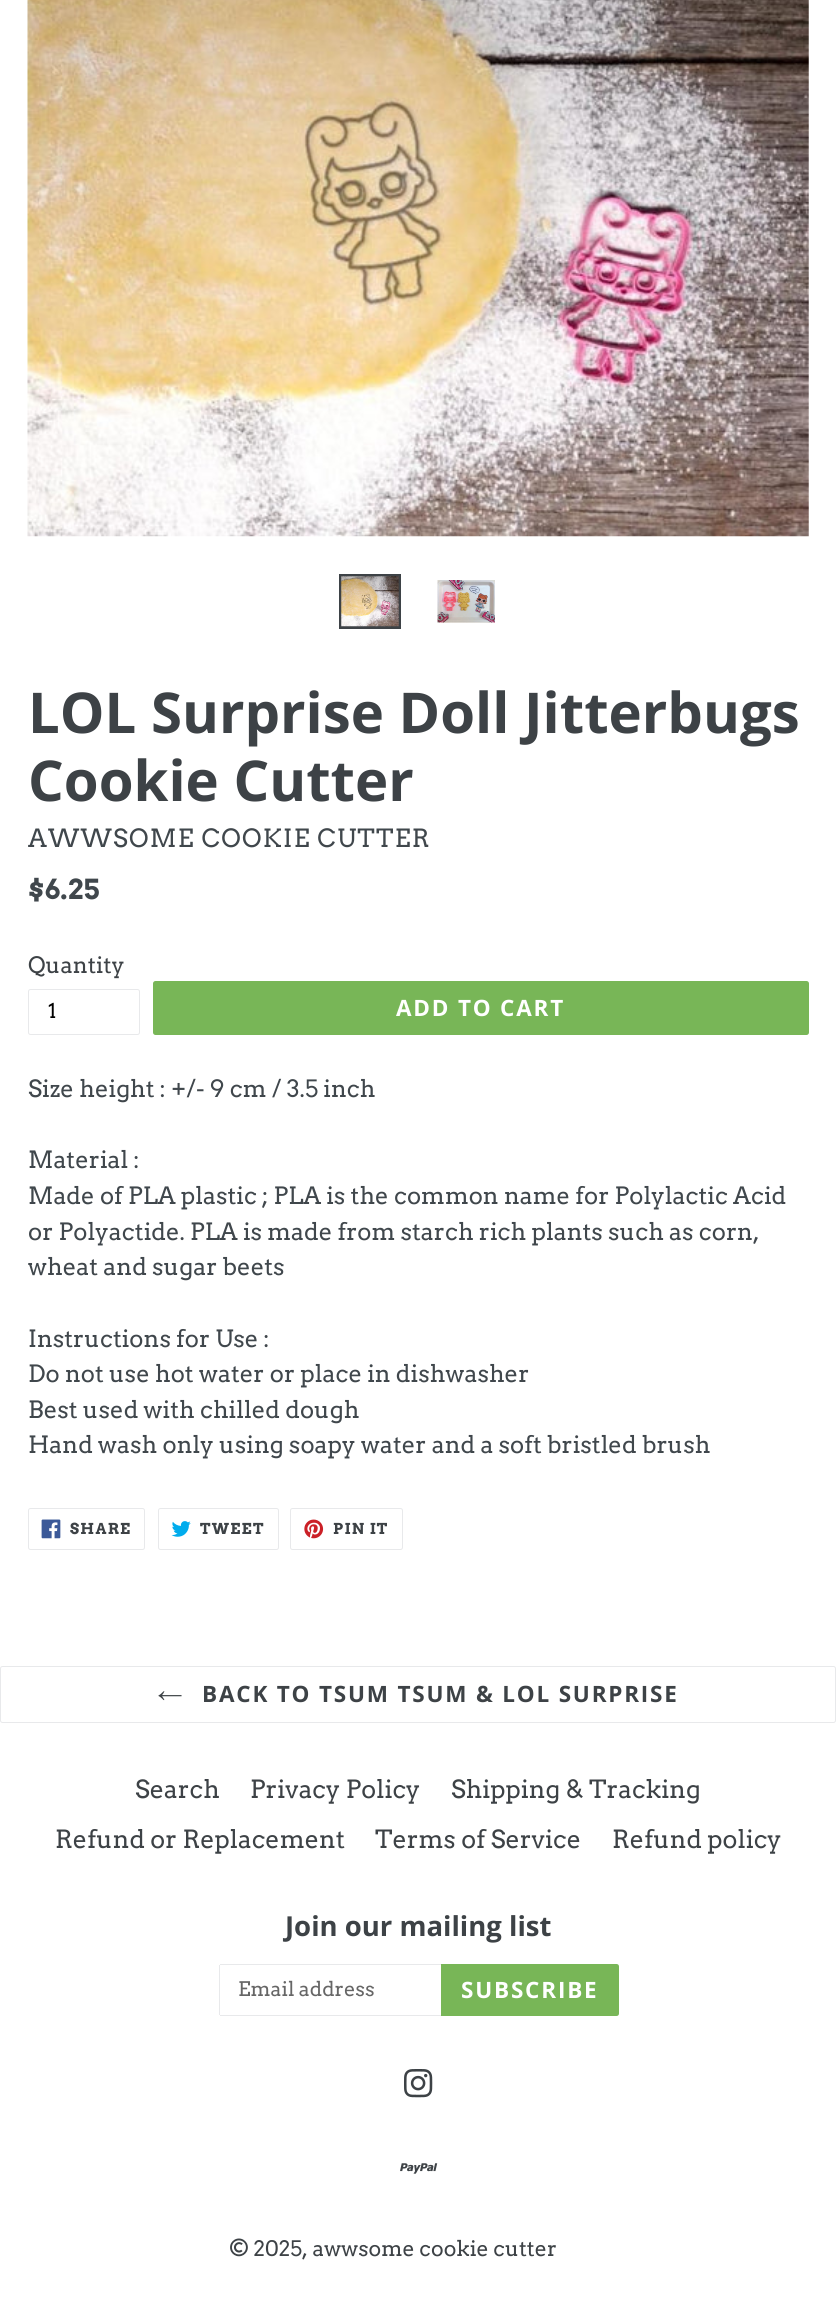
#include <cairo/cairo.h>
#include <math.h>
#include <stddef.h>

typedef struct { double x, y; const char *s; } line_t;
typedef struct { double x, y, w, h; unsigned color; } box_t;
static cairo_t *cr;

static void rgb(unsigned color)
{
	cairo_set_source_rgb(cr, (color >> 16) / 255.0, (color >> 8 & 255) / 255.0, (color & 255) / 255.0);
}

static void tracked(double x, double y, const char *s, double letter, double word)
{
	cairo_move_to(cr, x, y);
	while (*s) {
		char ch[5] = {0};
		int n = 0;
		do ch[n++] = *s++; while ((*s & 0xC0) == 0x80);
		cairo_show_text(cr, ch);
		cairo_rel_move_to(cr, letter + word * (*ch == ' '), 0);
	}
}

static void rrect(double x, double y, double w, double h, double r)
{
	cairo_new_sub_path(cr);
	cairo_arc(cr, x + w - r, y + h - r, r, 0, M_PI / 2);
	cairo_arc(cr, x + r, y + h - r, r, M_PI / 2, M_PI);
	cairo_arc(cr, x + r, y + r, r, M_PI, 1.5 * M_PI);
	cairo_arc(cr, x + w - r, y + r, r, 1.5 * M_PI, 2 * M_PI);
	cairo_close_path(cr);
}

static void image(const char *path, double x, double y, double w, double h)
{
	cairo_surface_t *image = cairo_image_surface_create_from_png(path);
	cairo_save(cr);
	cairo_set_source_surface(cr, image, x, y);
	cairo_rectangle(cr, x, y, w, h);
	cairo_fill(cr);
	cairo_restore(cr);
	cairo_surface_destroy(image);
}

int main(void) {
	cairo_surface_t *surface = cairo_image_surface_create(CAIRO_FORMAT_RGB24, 836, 2324);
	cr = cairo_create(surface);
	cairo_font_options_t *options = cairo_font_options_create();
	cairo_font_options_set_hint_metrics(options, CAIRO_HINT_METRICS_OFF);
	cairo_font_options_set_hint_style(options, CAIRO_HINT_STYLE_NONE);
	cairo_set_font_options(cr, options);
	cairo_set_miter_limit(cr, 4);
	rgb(0xffffff);
	cairo_paint(cr);
	image("img/1.png", 27, 0, 782, 537);
	cairo_rectangle(cr, 340.5, 575.5, 59, 52);
	rgb(0x3d4246);
	cairo_set_line_width(cr, 3);
	cairo_stroke(cr);
	image("img/2.png", 341, 576, 58, 51);
	image("img/3.png", 437, 580, 58, 43);
	rrect(28.5, 989.5, 111, 45, 2);
	rgb(0xe8e9eb);
	cairo_set_line_width(cr, 1);
	cairo_stroke(cr);
	rgb(0x78b657);
	rrect(153, 981, 656, 54, 2.5);
	cairo_fill(cr);
	rrect(28.5, 1508.5, 116, 41, 2);
	rgb(0xe8e9eb);
	cairo_stroke(cr);
	image("img/4.png", 41, 1519, 20, 20);
	rrect(158.5, 1508.5, 120, 41, 2);
	cairo_stroke(cr);
	image("img/5.png", 171, 1521, 20, 16);
	rrect(290.5, 1508.5, 112, 41, 2);
	cairo_stroke(cr);
	image("img/6.png", 304, 1519, 20, 20);
	rrect(0.5, 1666.5, 835, 56, 2);
	cairo_stroke(cr);
	image("img/7.png", 158, 1691, 24, 10);
	{
		static const box_t items[] = {
			{220, 1964, 221, 1, 0xe8e9eb},
			{220, 2015, 221, 1, 0xe8e9eb},
			{219, 1965, 1, 50, 0xe8e9eb},
		};
		for (size_t i = 0; i < sizeof items / sizeof *items; i++) {
			rgb(items[i].color);
			cairo_rectangle(cr, items[i].x, items[i].y, items[i].w, items[i].h);
			cairo_fill(cr);
		}
	}
	rgb(0x78b657);
	cairo_new_path(cr);
	cairo_move_to(cr, 441, 1964);
	cairo_line_to(cr, 616.5, 1964);
	cairo_curve_to(cr, 618, 1964, 619, 1965, 619, 1966.5);
	cairo_line_to(cr, 619, 2013.5);
	cairo_curve_to(cr, 619, 2015, 618, 2016, 616.5, 2016);
	cairo_line_to(cr, 441, 2016);
	cairo_close_path(cr);
	cairo_fill(cr);
	image("img/8.png", 404, 2069, 29, 29);
	image("img/9.png", 400, 2163, 38, 11);
	cairo_select_font_face(cr, "Open Sans", CAIRO_FONT_SLANT_NORMAL, CAIRO_FONT_WEIGHT_BOLD);
	cairo_set_font_size(cr, 56.25);
	rgb(0x3d4246);
	cairo_move_to(cr, 28, 733);
	cairo_show_text(cr, "LOL Surprise Doll Jitterbugs");
	cairo_move_to(cr, 28, 801);
	cairo_show_text(cr, "Cookie Cutter");
	cairo_select_font_face(cr, "Arvo", CAIRO_FONT_SLANT_NORMAL, CAIRO_FONT_WEIGHT_NORMAL);
	cairo_set_font_size(cr, 25);
	rgb(0x40474c);
	tracked(28, 847, "AWWSOME COOKIE CUTTER", 1.25, 0);
	cairo_select_font_face(cr, "Arvo", CAIRO_FONT_SLANT_NORMAL, CAIRO_FONT_WEIGHT_BOLD);
	cairo_set_font_size(cr, 27.5);
	cairo_move_to(cr, 28, 899);
	cairo_show_text(cr, "$6.25");
	cairo_select_font_face(cr, "Arvo", CAIRO_FONT_SLANT_NORMAL, CAIRO_FONT_WEIGHT_NORMAL);
	cairo_set_font_size(cr, 22.5);
	rgb(0x3d4246);
	cairo_move_to(cr, 28, 973);
	cairo_show_text(cr, "Quantity");
	cairo_set_font_size(cr, 20);
	rgb(0x000000);
	cairo_move_to(cr, 48, 1018);
	cairo_show_text(cr, "1");
	cairo_select_font_face(cr, "Open Sans", CAIRO_FONT_SLANT_NORMAL, CAIRO_FONT_WEIGHT_BOLD);
	cairo_set_font_size(cr, 22.5);
	rgb(0xffffff);
	tracked(396, 1016, "ADD TO CART", 1.8, 0);
	cairo_select_font_face(cr, "Arvo", CAIRO_FONT_SLANT_NORMAL, CAIRO_FONT_WEIGHT_NORMAL);
	cairo_set_font_size(cr, 23.75);
	rgb(0x40474c);
	{
		static const line_t items[] = {
			{28, 1097, "Size height : +/- 9 cm / 3.5 inch"},
			{28, 1168, "Material :"},
			{28, 1204, "Made of PLA plastic ; PLA is the common name for Polylactic Acid"},
			{28, 1240, "or Polyactide. PLA is made from starch rich plants such as corn,"},
			{28, 1275, "wheat and sugar beets"},
			{28, 1347, "Instructions for Use :"},
			{28, 1382, "Do not use hot water or place in dishwasher"},
			{28, 1418, "Best used with chilled dough"},
			{28, 1453, "Hand wash only using soapy water and a soft bristled brush"},
		};
		for (size_t i = 0; i < sizeof items / sizeof *items; i++) {
			cairo_move_to(cr, items[i].x, items[i].y);
			cairo_show_text(cr, items[i].s);
		}
	}
	cairo_select_font_face(cr, "Arvo", CAIRO_FONT_SLANT_NORMAL, CAIRO_FONT_WEIGHT_BOLD);
	cairo_set_font_size(cr, 15);
	rgb(0x3d4246);
	{
		static const line_t items[] = {
			{70, 1534, "SHARE"},
			{200, 1534, "TWEET"},
			{333, 1534, "PIN IT"},
		};
		for (size_t i = 0; i < sizeof items / sizeof *items; i++) {
			tracked(items[i].x, items[i].y, items[i].s, 1.25, 0);
		}
	}
	cairo_select_font_face(cr, "Open Sans", CAIRO_FONT_SLANT_NORMAL, CAIRO_FONT_WEIGHT_BOLD);
	cairo_set_font_size(cr, 22.5);
	tracked(202, 1702, "BACK TO TSUM TSUM & LOL SURPRISE", 1.8, 0);
	cairo_select_font_face(cr, "Arvo", CAIRO_FONT_SLANT_NORMAL, CAIRO_FONT_WEIGHT_NORMAL);
	cairo_set_font_size(cr, 25);
	{
		static const line_t items[] = {
			{135, 1798, "Search"},
			{250, 1798, "Privacy Policy"},
			{451, 1798, "Shipping & Tracking"},
			{55, 1848, "Refund or Replacement"},
			{375, 1848, "Terms of Service"},
			{612, 1848, "Refund policy"},
		};
		for (size_t i = 0; i < sizeof items / sizeof *items; i++) {
			cairo_move_to(cr, items[i].x, items[i].y);
			cairo_show_text(cr, items[i].s);
		}
	}
	cairo_select_font_face(cr, "Open Sans", CAIRO_FONT_SLANT_NORMAL, CAIRO_FONT_WEIGHT_BOLD);
	cairo_set_font_size(cr, 27.5);
	cairo_move_to(cr, 285, 1936);
	cairo_show_text(cr, "Join our mailing list");
	cairo_select_font_face(cr, "Arvo", CAIRO_FONT_SLANT_NORMAL, CAIRO_FONT_WEIGHT_NORMAL);
	cairo_set_font_size(cr, 20);
	rgb(0x666666);
	cairo_move_to(cr, 238, 1996);
	cairo_show_text(cr, "Email address");
	cairo_select_font_face(cr, "Open Sans", CAIRO_FONT_SLANT_NORMAL, CAIRO_FONT_WEIGHT_BOLD);
	cairo_set_font_size(cr, 22.5);
	rgb(0xffffff);
	tracked(461, 1998, "SUBSCRIBE", 1.8, 0);
	cairo_select_font_face(cr, "Arvo", CAIRO_FONT_SLANT_NORMAL, CAIRO_FONT_WEIGHT_NORMAL);
	cairo_set_font_size(cr, 21.25);
	rgb(0x3d4246);
	cairo_move_to(cr, 229, 2256);
	cairo_show_text(cr, "© 2025, awwsome cookie cutter");
	cairo_surface_write_to_png(surface, "page.png");
	cairo_font_options_destroy(options);
	cairo_destroy(cr);
	cairo_surface_destroy(surface);
	return 0;
}
